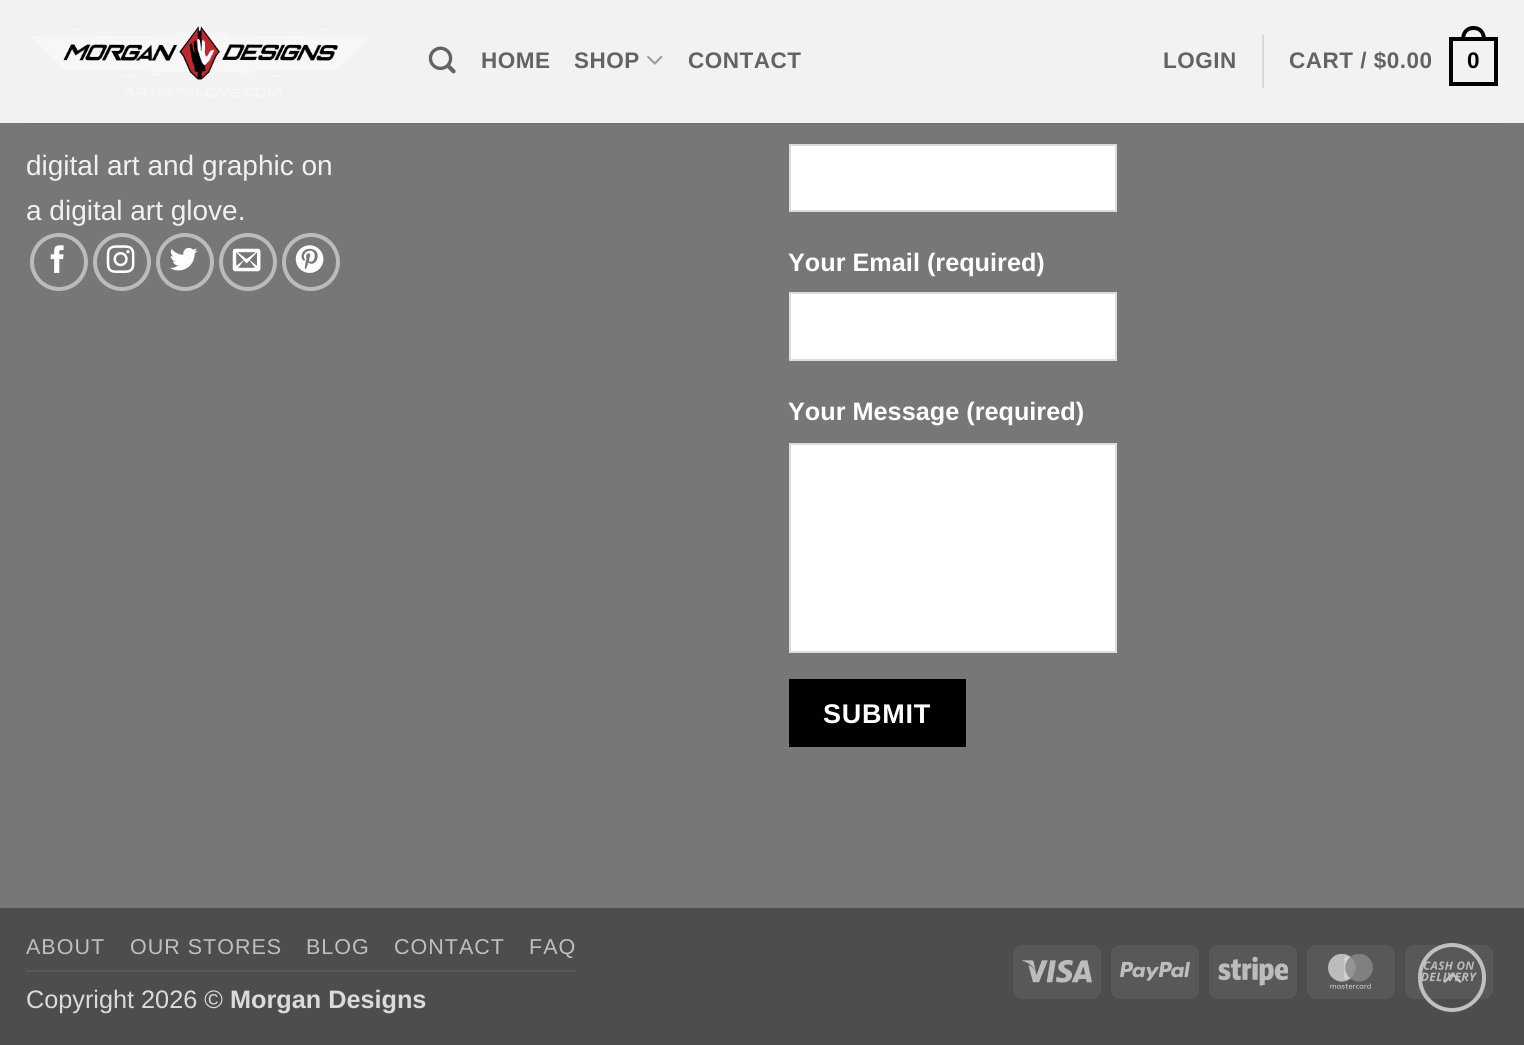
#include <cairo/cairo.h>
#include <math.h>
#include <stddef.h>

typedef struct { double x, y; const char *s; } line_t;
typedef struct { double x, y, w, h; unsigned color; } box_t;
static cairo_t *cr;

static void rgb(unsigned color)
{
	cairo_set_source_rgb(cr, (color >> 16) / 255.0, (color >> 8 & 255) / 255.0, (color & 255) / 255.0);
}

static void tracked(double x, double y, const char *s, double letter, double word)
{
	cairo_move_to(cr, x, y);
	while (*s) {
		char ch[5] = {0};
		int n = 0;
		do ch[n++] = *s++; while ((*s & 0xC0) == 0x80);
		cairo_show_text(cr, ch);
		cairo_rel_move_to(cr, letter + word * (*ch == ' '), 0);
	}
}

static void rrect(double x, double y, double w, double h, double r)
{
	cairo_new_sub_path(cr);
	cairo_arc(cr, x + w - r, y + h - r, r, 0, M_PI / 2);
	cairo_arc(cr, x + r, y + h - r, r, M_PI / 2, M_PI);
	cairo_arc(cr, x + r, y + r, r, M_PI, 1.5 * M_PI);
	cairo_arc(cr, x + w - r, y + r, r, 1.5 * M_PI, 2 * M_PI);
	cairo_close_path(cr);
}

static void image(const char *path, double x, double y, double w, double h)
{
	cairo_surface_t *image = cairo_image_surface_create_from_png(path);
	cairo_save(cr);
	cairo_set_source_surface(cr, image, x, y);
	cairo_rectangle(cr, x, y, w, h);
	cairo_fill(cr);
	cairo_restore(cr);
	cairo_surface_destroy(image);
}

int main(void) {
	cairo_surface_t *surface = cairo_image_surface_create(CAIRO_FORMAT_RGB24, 1524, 1045);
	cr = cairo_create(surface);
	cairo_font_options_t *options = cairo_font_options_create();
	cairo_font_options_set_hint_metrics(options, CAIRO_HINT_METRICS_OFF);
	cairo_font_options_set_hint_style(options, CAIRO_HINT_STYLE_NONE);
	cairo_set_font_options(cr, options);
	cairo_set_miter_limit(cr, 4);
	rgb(0x777777);
	cairo_paint(cr);
	cairo_set_source_rgba(cr, 1, 1, 1, 0.9);
	cairo_rectangle(cr, 0, 0, 1524, 123);
	cairo_fill(cr);
	image("img/1.png", 32, 26, 338, 71);
	image("img/2.png", 428, 46, 28, 28);
	image("img/3.png", 647, 55, 16, 10);
	rgb(0xd9d9d9);
	cairo_rectangle(cr, 1262, 35, 2, 53);
	cairo_fill(cr);
	cairo_rectangle(cr, 1451, 39, 45, 45);
	rgb(0x000000);
	cairo_set_line_width(cr, 4);
	cairo_stroke(cr);
	cairo_set_fill_rule(cr, CAIRO_FILL_RULE_EVEN_ODD);
	cairo_new_path(cr);
	cairo_move_to(cr, 1473.5, 26);
	cairo_curve_to(cr, 1482, 26, 1486, 32.5, 1486, 40);
	cairo_line_to(cr, 1461, 40);
	cairo_curve_to(cr, 1461, 32.5, 1465, 26, 1473.5, 26);
	cairo_close_path(cr);
	cairo_move_to(cr, 1473.5, 30);
	cairo_curve_to(cr, 1480, 30, 1482, 34.5, 1482, 40);
	cairo_line_to(cr, 1465, 40);
	cairo_curve_to(cr, 1465, 34.5, 1467, 30, 1473.5, 30);
	cairo_close_path(cr);
	cairo_fill(cr);
	cairo_set_source_rgba(cr, 0.29, 0.29, 0.29, 0.1);
	cairo_rectangle(cr, 26, 123, 1472, 2);
	cairo_fill(cr);
	cairo_arc(cr, 59, 262, 27, 0, 2 * M_PI);
	rgb(0xbbbbbb);
	cairo_stroke(cr);
	image("img/4.png", 50, 245, 14, 28);
	cairo_arc(cr, 122, 262, 27, 0, 2 * M_PI);
	cairo_stroke(cr);
	image("img/5.png", 106, 245, 29, 28);
	cairo_arc(cr, 185, 262, 27, 0, 2 * M_PI);
	cairo_stroke(cr);
	image("img/6.png", 170, 247, 28, 24);
	cairo_arc(cr, 248, 262, 27, 0, 2 * M_PI);
	cairo_stroke(cr);
	image("img/7.png", 232, 248, 29, 24);
	cairo_arc(cr, 311, 262, 27, 0, 2 * M_PI);
	cairo_stroke(cr);
	image("img/8.png", 295, 245, 29, 28);
	rgb(0xffffff);
	cairo_rectangle(cr, 790, 145, 326, 66);
	cairo_fill_preserve(cr);
	rgb(0xdddddd);
	cairo_set_line_width(cr, 2);
	cairo_stroke(cr);
	rgb(0xffffff);
	cairo_rectangle(cr, 790, 293, 326, 67);
	cairo_fill_preserve(cr);
	rgb(0xdddddd);
	cairo_stroke(cr);
	rgb(0xffffff);
	cairo_rectangle(cr, 790, 444, 326, 208);
	cairo_fill_preserve(cr);
	rgb(0xdddddd);
	cairo_stroke(cr);
	{
		static const box_t items[] = {
			{789, 679, 177, 68, 0x000000},
			{0, 908, 1524, 137, 0x4d4d4d},
			{26, 970, 550, 2, 0x585858},
		};
		for (size_t i = 0; i < sizeof items / sizeof *items; i++) {
			rgb(items[i].color);
			cairo_rectangle(cr, items[i].x, items[i].y, items[i].w, items[i].h);
			cairo_fill(cr);
		}
	}
	rrect(1013, 945, 88, 54, 9);
	cairo_fill(cr);
	image("img/9.png", 1022, 959, 70, 24);
	rrect(1111, 945, 88, 54, 9);
	cairo_fill(cr);
	image("img/10.png", 1120, 961, 70, 20);
	rrect(1209, 945, 88, 54, 9);
	cairo_fill(cr);
	image("img/11.png", 1218, 956, 70, 30);
	rrect(1307, 945, 88, 54, 9);
	cairo_fill(cr);
	image("img/12.png", 1328, 954, 45, 35);
	rrect(1405, 945, 88, 54, 9);
	cairo_fill(cr);
	image("img/13.png", 1422, 961, 55, 21);
	rrect(1420, 945, 64, 65, 32);
	rgb(0xc0c0c0);
	cairo_set_line_width(cr, 4);
	cairo_stroke(cr);
	image("img/14.png", 1443, 972, 19, 11);
	cairo_select_font_face(cr, "Liberation Sans", CAIRO_FONT_SLANT_NORMAL, CAIRO_FONT_WEIGHT_BOLD);
	cairo_set_font_size(cr, 22.5);
	rgb(0x636363);
	{
		static const line_t items[] = {
			{481, 68, "HOME"},
			{574, 68, "SHOP"},
			{688, 68, "CONTACT"},
			{1163, 68, "LOGIN"},
			{1289, 68, "CART / $0.00"},
		};
		for (size_t i = 0; i < sizeof items / sizeof *items; i++) {
			tracked(items[i].x, items[i].y, items[i].s, 0.5, 0);
		}
	}
	rgb(0x000000);
	tracked(1467, 68, "0", 0.5, 0);
	cairo_select_font_face(cr, "Liberation Sans", CAIRO_FONT_SLANT_NORMAL, CAIRO_FONT_WEIGHT_NORMAL);
	cairo_set_font_size(cr, 28);
	rgb(0xf1f1f1);
	cairo_move_to(cr, 26, 175);
	cairo_show_text(cr, "digital art and graphic on");
	cairo_move_to(cr, 26, 220);
	cairo_show_text(cr, "a digital art glove.");
	cairo_select_font_face(cr, "Liberation Sans", CAIRO_FONT_SLANT_NORMAL, CAIRO_FONT_WEIGHT_BOLD);
	cairo_set_font_size(cr, 25.25);
	rgb(0xffffff);
	cairo_move_to(cr, 788, 271);
	cairo_show_text(cr, "Your Email (required)");
	cairo_move_to(cr, 788, 420);
	cairo_show_text(cr, "Your Message (required)");
	cairo_set_font_size(cr, 27);
	tracked(823, 723, "SUBMIT", 0.75, 0);
	cairo_select_font_face(cr, "Liberation Sans", CAIRO_FONT_SLANT_NORMAL, CAIRO_FONT_WEIGHT_NORMAL);
	cairo_set_font_size(cr, 21.5);
	rgb(0xbfbfbf);
	{
		static const line_t items[] = {
			{26, 954, "ABOUT"},
			{130, 954, "OUR STORES"},
			{306, 954, "BLOG"},
			{394, 954, "CONTACT"},
			{529, 954, "FAQ"},
		};
		for (size_t i = 0; i < sizeof items / sizeof *items; i++) {
			tracked(items[i].x, items[i].y, items[i].s, 1, 0);
		}
	}
	cairo_set_font_size(cr, 25.25);
	rgb(0xdbdbdb);
	cairo_move_to(cr, 26, 1008);
	cairo_show_text(cr, "Copyright 2026 ©");
	cairo_select_font_face(cr, "Liberation Sans", CAIRO_FONT_SLANT_NORMAL, CAIRO_FONT_WEIGHT_BOLD);
	cairo_move_to(cr, 230, 1008);
	cairo_show_text(cr, "Morgan Designs");
	cairo_surface_write_to_png(surface, "page.png");
	cairo_font_options_destroy(options);
	cairo_destroy(cr);
	cairo_surface_destroy(surface);
	return 0;
}
